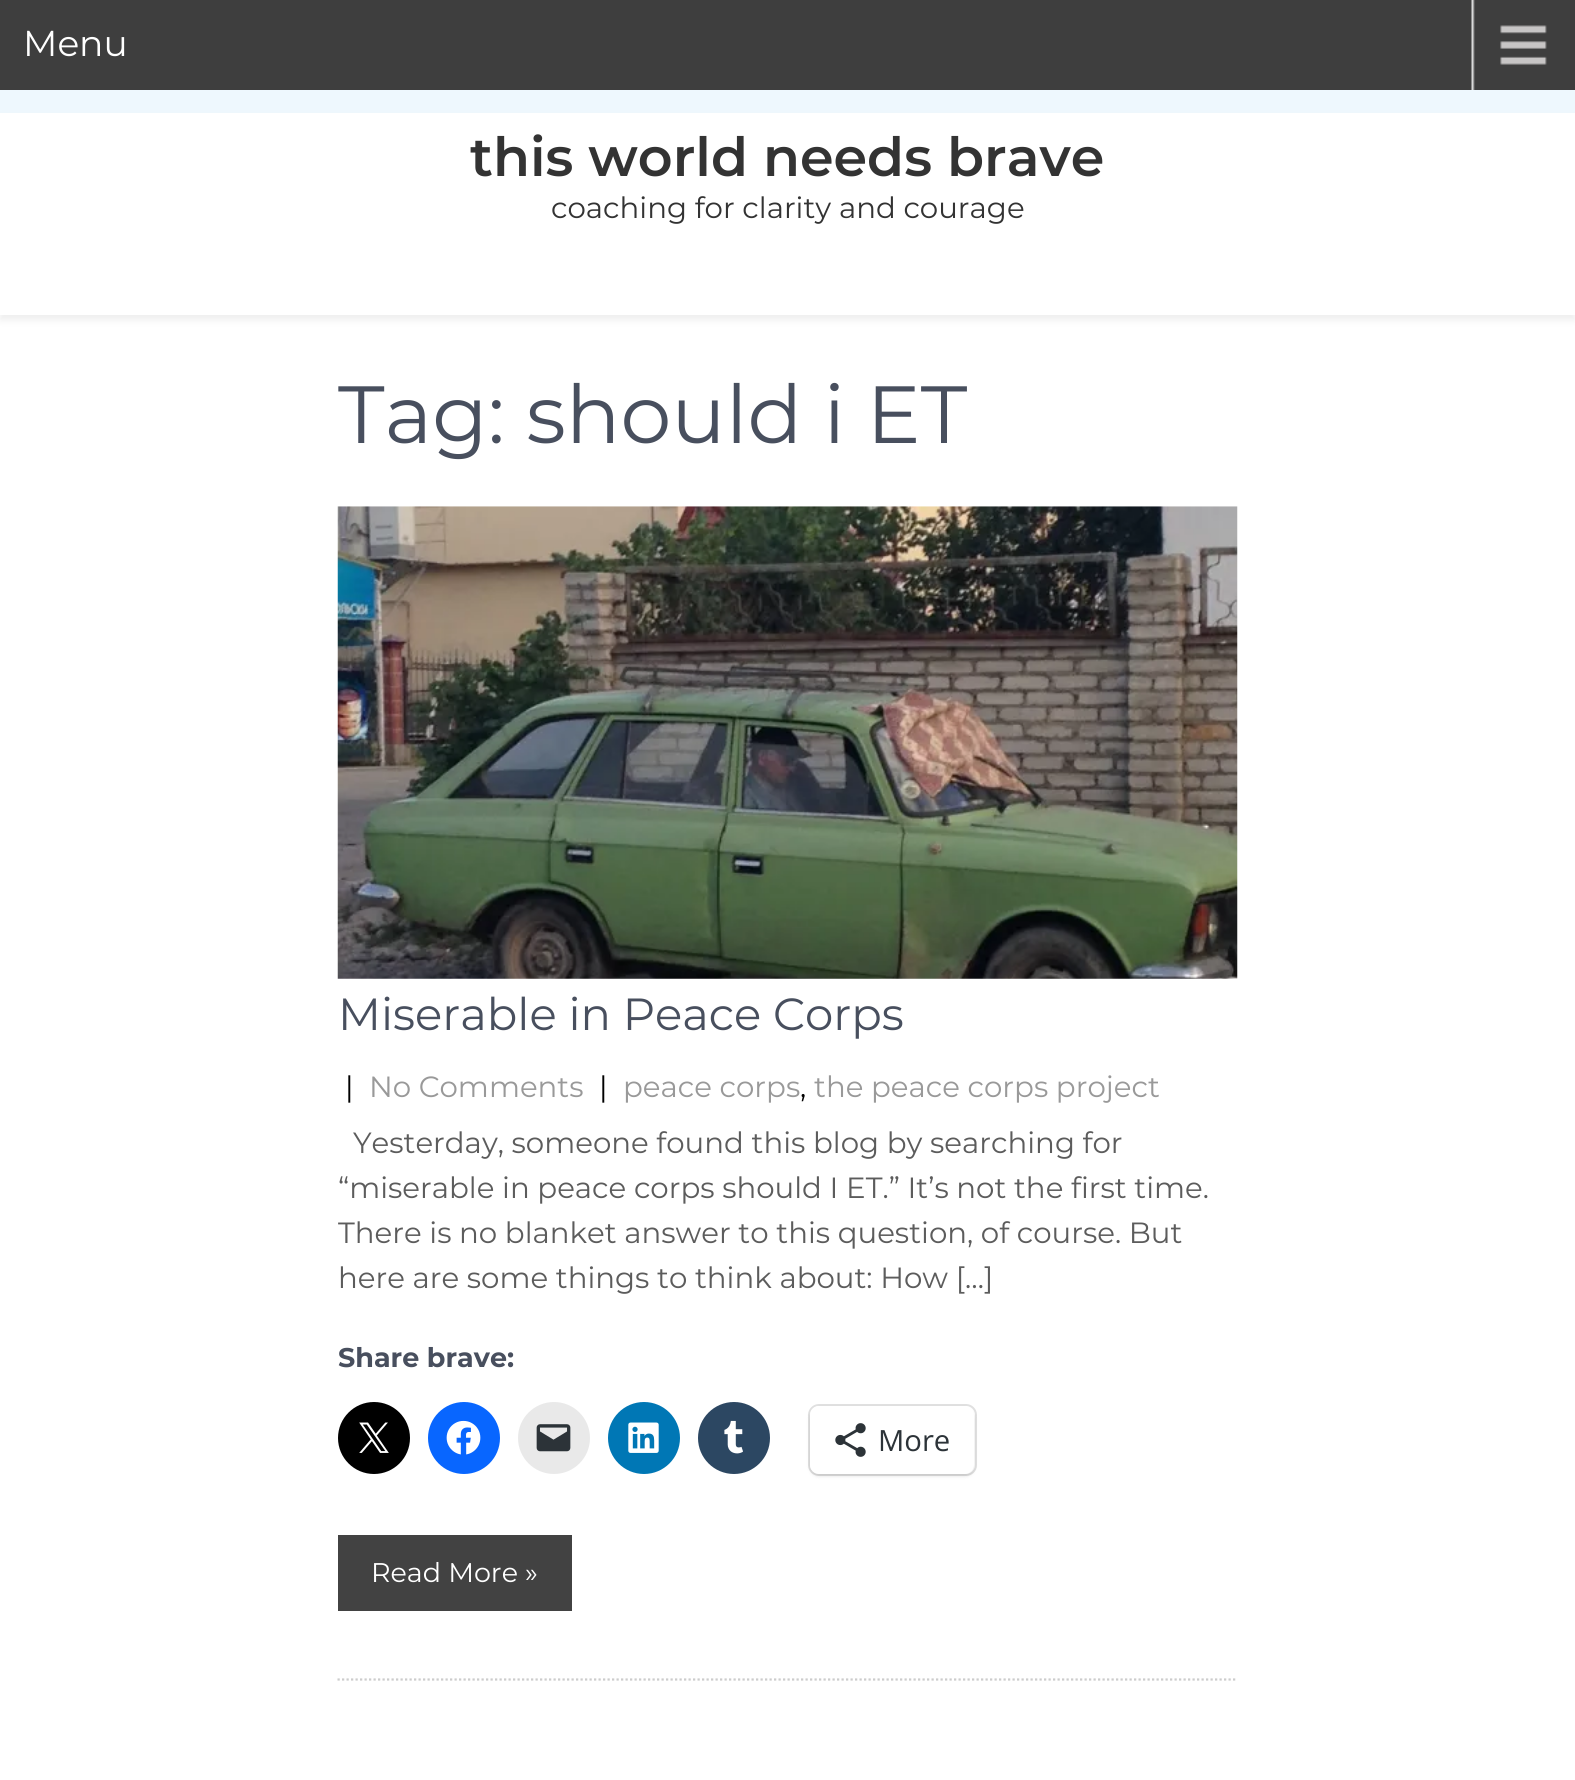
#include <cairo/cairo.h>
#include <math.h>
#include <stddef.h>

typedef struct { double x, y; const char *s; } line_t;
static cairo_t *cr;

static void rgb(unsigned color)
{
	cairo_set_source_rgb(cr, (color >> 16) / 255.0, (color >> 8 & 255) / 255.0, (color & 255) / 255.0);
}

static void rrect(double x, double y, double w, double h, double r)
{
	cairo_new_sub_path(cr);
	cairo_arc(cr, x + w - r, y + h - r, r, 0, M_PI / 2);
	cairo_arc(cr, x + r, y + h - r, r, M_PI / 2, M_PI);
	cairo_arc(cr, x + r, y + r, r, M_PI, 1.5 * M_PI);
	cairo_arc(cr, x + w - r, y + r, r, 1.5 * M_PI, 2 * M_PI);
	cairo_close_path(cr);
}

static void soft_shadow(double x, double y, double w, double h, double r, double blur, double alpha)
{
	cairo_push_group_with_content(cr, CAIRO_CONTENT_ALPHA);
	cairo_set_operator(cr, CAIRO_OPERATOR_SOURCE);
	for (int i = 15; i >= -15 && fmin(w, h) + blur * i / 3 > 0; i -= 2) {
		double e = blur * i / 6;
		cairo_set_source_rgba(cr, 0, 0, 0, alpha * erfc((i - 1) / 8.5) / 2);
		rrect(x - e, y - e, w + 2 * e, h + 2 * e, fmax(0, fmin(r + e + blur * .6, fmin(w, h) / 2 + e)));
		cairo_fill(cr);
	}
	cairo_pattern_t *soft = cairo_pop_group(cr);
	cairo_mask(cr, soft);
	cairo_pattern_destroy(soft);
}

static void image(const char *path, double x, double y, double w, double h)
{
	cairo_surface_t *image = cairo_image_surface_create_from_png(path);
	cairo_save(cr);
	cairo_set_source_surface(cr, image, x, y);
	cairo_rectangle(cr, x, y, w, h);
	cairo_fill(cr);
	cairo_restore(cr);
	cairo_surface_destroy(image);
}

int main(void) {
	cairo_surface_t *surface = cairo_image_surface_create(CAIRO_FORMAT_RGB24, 1575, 1780);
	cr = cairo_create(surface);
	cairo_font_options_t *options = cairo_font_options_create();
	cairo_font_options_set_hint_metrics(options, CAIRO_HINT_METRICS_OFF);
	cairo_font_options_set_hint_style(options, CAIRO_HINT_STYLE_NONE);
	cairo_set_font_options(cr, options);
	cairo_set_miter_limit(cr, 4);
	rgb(0xffffff);
	cairo_paint(cr);
	rgb(0xeef8fe);
	cairo_rectangle(cr, 0, 90, 1575, 23);
	cairo_fill(cr);
	rgb(0x3e3e3e);
	cairo_rectangle(cr, 0, 0, 1575, 90);
	cairo_fill(cr);
	image("img/1.png", 1471, 0, 76, 90);
	cairo_save(cr);
	cairo_set_fill_rule(cr, CAIRO_FILL_RULE_EVEN_ODD);
	cairo_new_path(cr);
	cairo_move_to(cr, 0, 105);
	cairo_line_to(cr, 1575, 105);
	cairo_line_to(cr, 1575, 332);
	cairo_line_to(cr, 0, 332);
	cairo_close_path(cr);
	cairo_move_to(cr, 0, 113);
	cairo_line_to(cr, 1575, 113);
	cairo_line_to(cr, 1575, 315);
	cairo_line_to(cr, 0, 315);
	cairo_close_path(cr);
	cairo_clip(cr);
	rgb(0xeeeeee);
	soft_shadow(0, 117, 1575, 203, 0, 3.5, 1);
	cairo_restore(cr);
	cairo_new_path(cr);
	cairo_move_to(cr, 337.5, 1679.5);
	cairo_line_to(cr, 1237.5, 1679.5);
	rgb(0xcccccc);
	cairo_set_line_width(cr, 2.2);
	cairo_set_dash(cr, (double[]){2.25, 2.25}, 2, 0);
	cairo_stroke(cr);
	image("img/2.png", 337, 506, 901, 473);
	rgb(0x000000);
	cairo_arc(cr, 374, 1438, 36, 0, 2 * M_PI);
	cairo_fill(cr);
	image("img/3.png", 359, 1422, 30, 31);
	rgb(0x0866ff);
	cairo_arc(cr, 464, 1438, 36, 0, 2 * M_PI);
	cairo_fill(cr);
	image("img/4.png", 446, 1420, 35, 35);
	rgb(0xe9e9e9);
	cairo_arc(cr, 554, 1438, 36, 0, 2 * M_PI);
	cairo_fill(cr);
	image("img/5.png", 536, 1424, 35, 28);
	rgb(0x0077b5);
	cairo_arc(cr, 644, 1438, 36, 0, 2 * M_PI);
	cairo_fill(cr);
	image("img/6.png", 628, 1422, 31, 31);
	rgb(0x2c4762);
	cairo_arc(cr, 734, 1438, 36, 0, 2 * M_PI);
	cairo_fill(cr);
	image("img/7.png", 724, 1420, 19, 34);
	rrect(809, 1405, 167, 70, 10);
	rgb(0xe0e0e0);
	cairo_set_line_width(cr, 2);
	cairo_set_dash(cr, NULL, 0, 0);
	cairo_stroke(cr);
	rgb(0x000000);
	soft_shadow(810, 1409, 164, 67, 9, 2, 0.12);
	rgb(0xffffff);
	rrect(810, 1406, 164, 68, 9);
	cairo_fill(cr);
	image("img/8.png", 835, 1423, 31, 34);
	rgb(0x424242);
	cairo_rectangle(cr, 338, 1535, 234, 76);
	cairo_fill(cr);
	cairo_select_font_face(cr, "Montserrat", CAIRO_FONT_SLANT_NORMAL, CAIRO_FONT_WEIGHT_NORMAL);
	cairo_set_font_size(cr, 36);
	rgb(0xffffff);
	cairo_move_to(cr, 23, 56);
	cairo_show_text(cr, "Menu");
	cairo_select_font_face(cr, "Montserrat SemiBold", CAIRO_FONT_SLANT_NORMAL, CAIRO_FONT_WEIGHT_NORMAL);
	cairo_set_font_size(cr, 54);
	rgb(0x333333);
	cairo_move_to(cr, 470, 176);
	cairo_show_text(cr, "this world needs brave");
	cairo_select_font_face(cr, "Montserrat", CAIRO_FONT_SLANT_NORMAL, CAIRO_FONT_WEIGHT_NORMAL);
	cairo_set_font_size(cr, 29.25);
	cairo_move_to(cr, 551, 218);
	cairo_show_text(cr, "coaching for clarity and courage");
	cairo_set_font_size(cr, 81);
	rgb(0x484f5e);
	cairo_move_to(cr, 338, 443);
	cairo_show_text(cr, "Tag: should i ET");
	cairo_set_font_size(cr, 45);
	cairo_move_to(cr, 338, 1030);
	cairo_show_text(cr, "Miserable in Peace Corps");
	cairo_set_font_size(cr, 29.25);
	rgb(0x000000);
	cairo_move_to(cr, 345, 1097);
	cairo_show_text(cr, "|");
	rgb(0x999999);
	cairo_move_to(cr, 369, 1097);
	cairo_show_text(cr, "No Comments");
	rgb(0x000000);
	cairo_move_to(cr, 599, 1097);
	cairo_show_text(cr, "|");
	rgb(0x999999);
	cairo_move_to(cr, 623, 1097);
	cairo_show_text(cr, "peace corps");
	rgb(0x000000);
	cairo_move_to(cr, 800, 1097);
	cairo_show_text(cr, ",");
	rgb(0x999999);
	cairo_move_to(cr, 814, 1097);
	cairo_show_text(cr, "the peace corps project");
	rgb(0x5c5c5c);
	{
		static const line_t items[] = {
			{353, 1153, "Yesterday, someone found this blog by searching for"},
			{338, 1198, "“miserable in peace corps should I ET.” It’s not the first time."},
			{338, 1243, "There is no blanket answer to this question, of course. But"},
			{338, 1288, "here are some things to think about: How […]"},
		};
		for (size_t i = 0; i < sizeof items / sizeof *items; i++) {
			cairo_move_to(cr, items[i].x, items[i].y);
			cairo_show_text(cr, items[i].s);
		}
	}
	cairo_select_font_face(cr, "Montserrat", CAIRO_FONT_SLANT_NORMAL, CAIRO_FONT_WEIGHT_BOLD);
	cairo_set_font_size(cr, 27);
	rgb(0x484f5e);
	cairo_move_to(cr, 338, 1367);
	cairo_show_text(cr, "Share brave:");
	cairo_select_font_face(cr, "Open Sans", CAIRO_FONT_SLANT_NORMAL, CAIRO_FONT_WEIGHT_NORMAL);
	cairo_set_font_size(cr, 29.25);
	rgb(0x2c3338);
	cairo_move_to(cr, 878, 1451);
	cairo_show_text(cr, "More");
	cairo_select_font_face(cr, "Montserrat", CAIRO_FONT_SLANT_NORMAL, CAIRO_FONT_WEIGHT_NORMAL);
	cairo_set_font_size(cr, 27);
	rgb(0xffffff);
	cairo_move_to(cr, 371, 1582);
	cairo_show_text(cr, "Read More »");
	cairo_surface_write_to_png(surface, "page.png");
	cairo_font_options_destroy(options);
	cairo_destroy(cr);
	cairo_surface_destroy(surface);
	return 0;
}
